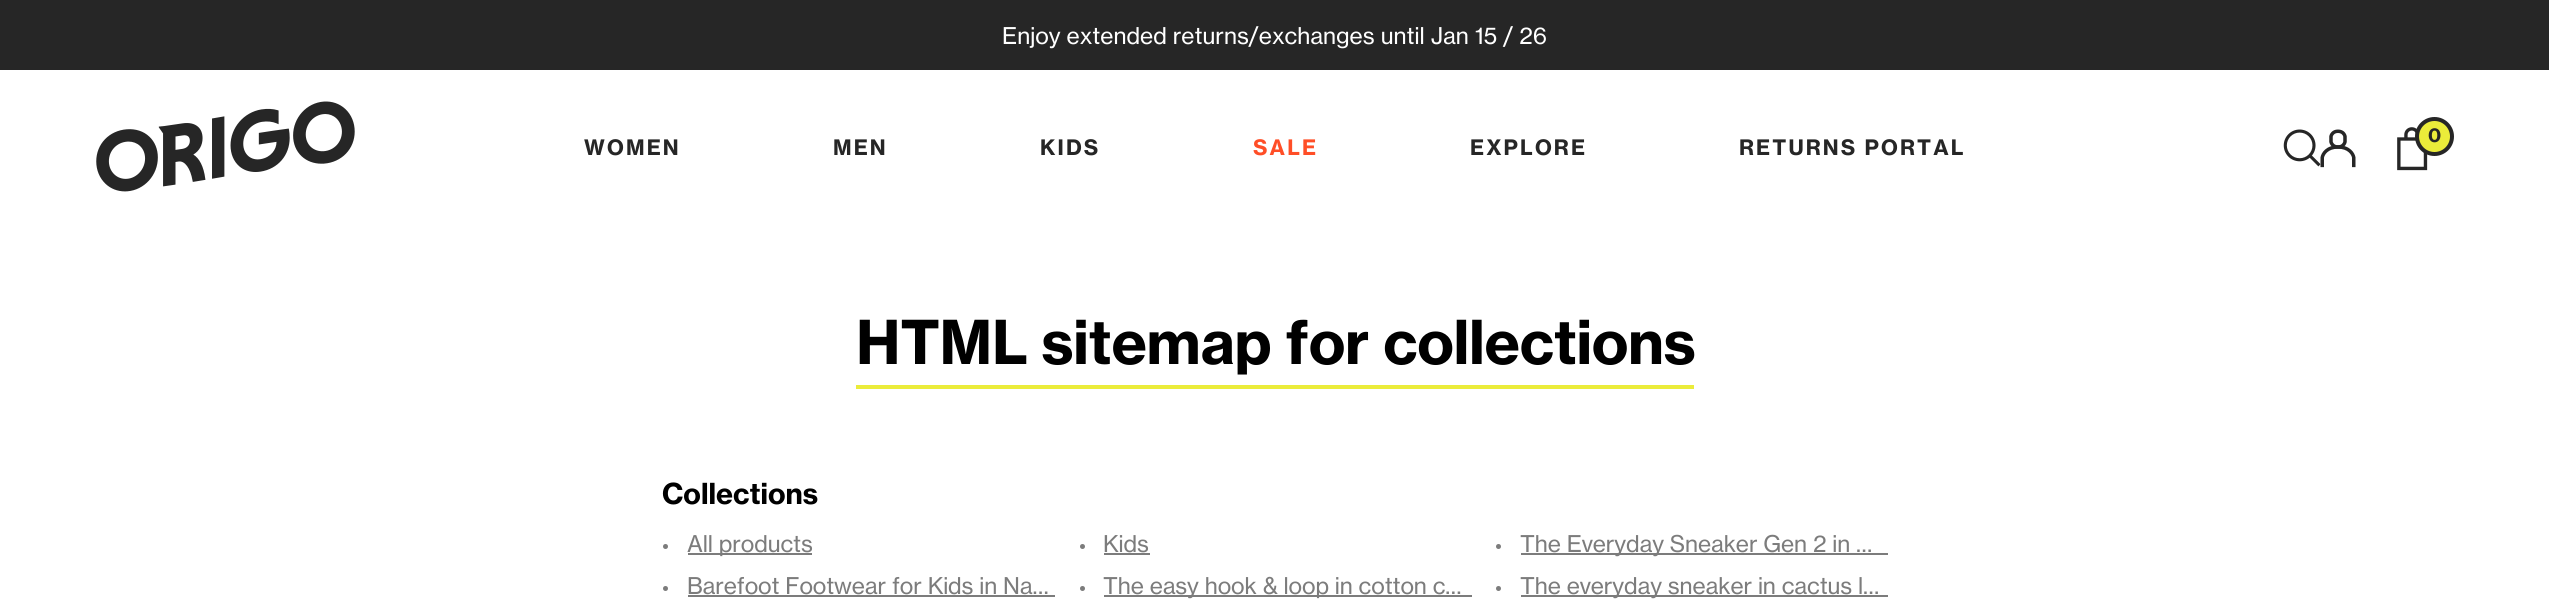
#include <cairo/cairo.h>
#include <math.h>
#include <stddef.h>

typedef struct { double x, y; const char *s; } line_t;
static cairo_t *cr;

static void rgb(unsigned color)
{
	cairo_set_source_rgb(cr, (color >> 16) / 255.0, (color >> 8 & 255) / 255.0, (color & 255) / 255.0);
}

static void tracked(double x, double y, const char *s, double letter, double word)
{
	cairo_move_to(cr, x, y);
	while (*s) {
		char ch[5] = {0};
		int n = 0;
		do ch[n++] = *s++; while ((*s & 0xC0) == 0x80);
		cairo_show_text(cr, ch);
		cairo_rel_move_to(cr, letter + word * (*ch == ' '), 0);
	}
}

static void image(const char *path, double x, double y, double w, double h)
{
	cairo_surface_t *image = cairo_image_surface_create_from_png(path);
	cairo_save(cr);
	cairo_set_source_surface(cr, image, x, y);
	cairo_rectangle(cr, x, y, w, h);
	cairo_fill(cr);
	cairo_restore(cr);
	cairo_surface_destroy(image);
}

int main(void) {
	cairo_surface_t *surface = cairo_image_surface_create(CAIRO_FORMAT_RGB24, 2549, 614);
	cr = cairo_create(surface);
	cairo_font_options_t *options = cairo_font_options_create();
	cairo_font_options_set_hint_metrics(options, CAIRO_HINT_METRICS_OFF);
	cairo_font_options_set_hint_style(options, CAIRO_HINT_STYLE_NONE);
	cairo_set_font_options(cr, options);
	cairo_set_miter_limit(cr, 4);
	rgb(0xffffff);
	cairo_paint(cr);
	rgb(0x262626);
	cairo_rectangle(cr, 0, 0, 2549, 70);
	cairo_fill(cr);
	image("img/1.png", 96, 101, 259, 91);
	image("img/3.png", 2320, 129, 36, 39);
	image("img/2.png", 2283, 129, 38, 38);
	image("img/4.png", 2397, 127, 31, 44);
	rgb(0xebec3a);
	cairo_arc(cr, 2434.5, 136.5, 17.5, 0, 2 * M_PI);
	cairo_fill_preserve(cr);
	rgb(0x262626);
	cairo_set_line_width(cr, 4);
	cairo_stroke(cr);
	rgb(0xebec3a);
	cairo_rectangle(cr, 856, 385, 838, 4);
	cairo_fill(cr);
	rgb(0x7c7c7c);
	cairo_arc(cr, 665.5, 546.5, 2.5, 0, 2 * M_PI);
	cairo_fill(cr);
	cairo_rectangle(cr, 688, 553, 124, 2);
	cairo_fill(cr);
	cairo_arc(cr, 1082.5, 546.5, 2.5, 0, 2 * M_PI);
	cairo_fill(cr);
	cairo_rectangle(cr, 1104, 553, 46, 2);
	cairo_fill(cr);
	cairo_arc(cr, 1498.5, 546.5, 2.5, 0, 2 * M_PI);
	cairo_fill(cr);
	cairo_rectangle(cr, 1521, 553, 367, 2);
	cairo_fill(cr);
	cairo_arc(cr, 665.5, 588.5, 2.5, 0, 2 * M_PI);
	cairo_fill(cr);
	cairo_rectangle(cr, 688, 595, 367, 2);
	cairo_fill(cr);
	cairo_arc(cr, 1082.5, 588.5, 2.5, 0, 2 * M_PI);
	cairo_fill(cr);
	cairo_rectangle(cr, 1104, 595, 368, 2);
	cairo_fill(cr);
	cairo_arc(cr, 1498.5, 588.5, 2.5, 0, 2 * M_PI);
	cairo_fill(cr);
	cairo_rectangle(cr, 1521, 595, 367, 2);
	cairo_fill(cr);
	cairo_select_font_face(cr, "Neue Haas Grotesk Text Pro", CAIRO_FONT_SLANT_NORMAL, CAIRO_FONT_WEIGHT_NORMAL);
	cairo_set_font_size(cr, 22.75);
	rgb(0xffffff);
	cairo_move_to(cr, 1002, 44);
	cairo_show_text(cr, "Enjoy extended returns/exchanges until Jan 15 / 26");
	cairo_select_font_face(cr, "Neue Haas Grotesk Text Pro", CAIRO_FONT_SLANT_NORMAL, CAIRO_FONT_WEIGHT_BOLD);
	cairo_set_font_size(cr, 19);
	rgb(0x262626);
	cairo_move_to(cr, 2428, 142);
	cairo_show_text(cr, "0");
	cairo_set_font_size(cr, 21);
	{
		static const line_t items[] = {
			{584, 155, "WOMEN"},
			{833, 155, "MEN"},
			{1040, 155, "KIDS"},
		};
		for (size_t i = 0; i < sizeof items / sizeof *items; i++) {
			tracked(items[i].x, items[i].y, items[i].s, 2.1, 0);
		}
	}
	rgb(0xff4e27);
	tracked(1253, 155, "SALE", 2.1, 0);
	rgb(0x262626);
	tracked(1470, 155, "EXPLORE", 2.1, 0);
	tracked(1739, 155, "RETURNS PORTAL", 2.1, 0);
	cairo_set_font_size(cr, 59.5);
	rgb(0x000000);
	tracked(856, 364, "HTML sitemap for collections", -0.3, 0);
	cairo_set_font_size(cr, 28.5);
	cairo_move_to(cr, 662, 504);
	cairo_show_text(cr, "Collections");
	cairo_select_font_face(cr, "Neue Haas Grotesk Text Pro", CAIRO_FONT_SLANT_NORMAL, CAIRO_FONT_WEIGHT_NORMAL);
	cairo_set_font_size(cr, 22.75);
	rgb(0x7c7c7c);
	{
		static const line_t items[] = {
			{687, 552, "All products"},
			{1103, 552, "Kids"},
			{1520, 552, "The Everyday Sneaker Gen 2 in …"},
			{687, 594, "Barefoot Footwear for Kids in Na…"},
			{1103, 594, "The easy hook & loop in cotton c…"},
			{1520, 594, "The everyday sneaker in cactus l…"},
		};
		for (size_t i = 0; i < sizeof items / sizeof *items; i++) {
			tracked(items[i].x, items[i].y, items[i].s, -0.1, 0);
		}
	}
	cairo_surface_write_to_png(surface, "page.png");
	cairo_font_options_destroy(options);
	cairo_destroy(cr);
	cairo_surface_destroy(surface);
	return 0;
}
